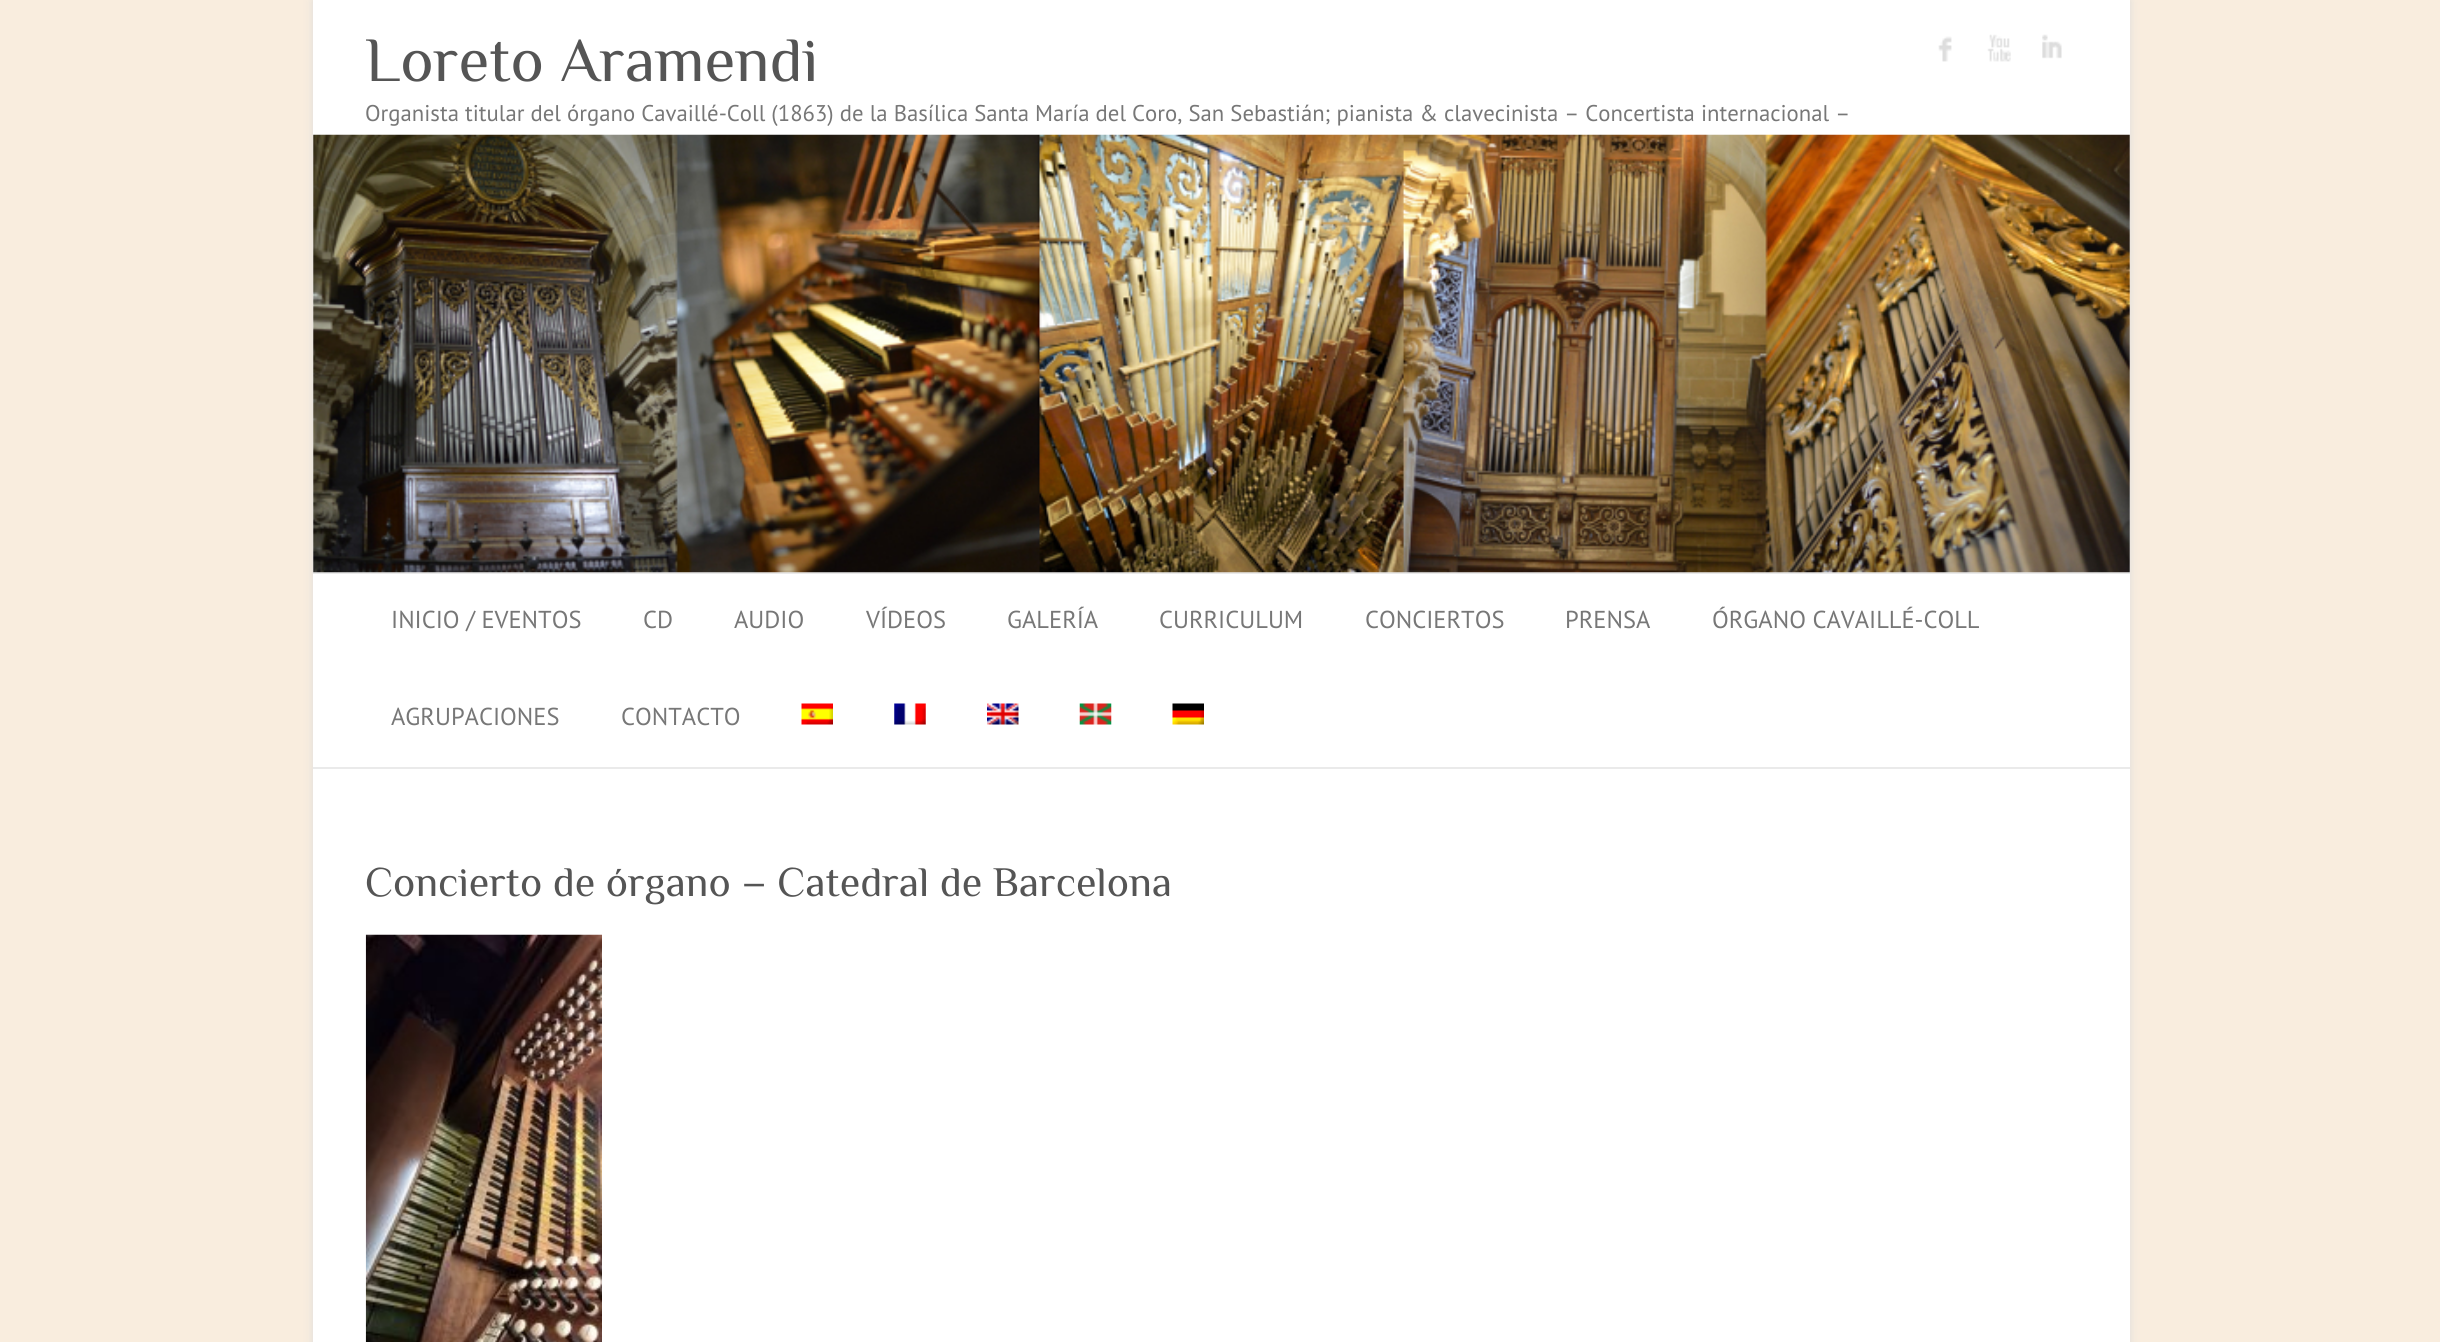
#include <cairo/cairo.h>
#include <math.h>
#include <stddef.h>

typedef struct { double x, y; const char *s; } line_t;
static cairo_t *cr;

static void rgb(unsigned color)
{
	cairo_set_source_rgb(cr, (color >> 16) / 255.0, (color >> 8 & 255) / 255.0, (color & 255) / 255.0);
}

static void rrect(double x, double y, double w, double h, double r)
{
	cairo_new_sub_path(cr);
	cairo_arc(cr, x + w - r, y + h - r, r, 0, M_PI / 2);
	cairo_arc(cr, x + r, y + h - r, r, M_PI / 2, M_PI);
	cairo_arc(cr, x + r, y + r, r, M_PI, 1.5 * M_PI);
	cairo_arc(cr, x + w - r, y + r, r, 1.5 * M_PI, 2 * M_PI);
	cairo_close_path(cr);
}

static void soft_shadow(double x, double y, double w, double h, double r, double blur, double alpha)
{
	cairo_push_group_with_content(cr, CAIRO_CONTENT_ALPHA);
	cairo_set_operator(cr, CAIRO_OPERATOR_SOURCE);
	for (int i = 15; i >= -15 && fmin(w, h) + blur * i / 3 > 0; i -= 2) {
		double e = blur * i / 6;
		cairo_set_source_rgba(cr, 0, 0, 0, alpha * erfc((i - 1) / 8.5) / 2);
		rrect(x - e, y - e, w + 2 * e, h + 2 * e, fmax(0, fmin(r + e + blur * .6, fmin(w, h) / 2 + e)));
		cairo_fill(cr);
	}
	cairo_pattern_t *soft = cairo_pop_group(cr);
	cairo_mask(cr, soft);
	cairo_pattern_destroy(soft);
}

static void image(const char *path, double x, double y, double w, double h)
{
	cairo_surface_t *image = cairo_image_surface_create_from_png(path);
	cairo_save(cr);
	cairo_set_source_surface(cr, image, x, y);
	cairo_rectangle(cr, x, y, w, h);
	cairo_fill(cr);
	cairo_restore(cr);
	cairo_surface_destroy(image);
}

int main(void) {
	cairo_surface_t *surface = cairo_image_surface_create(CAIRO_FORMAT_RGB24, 2440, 1342);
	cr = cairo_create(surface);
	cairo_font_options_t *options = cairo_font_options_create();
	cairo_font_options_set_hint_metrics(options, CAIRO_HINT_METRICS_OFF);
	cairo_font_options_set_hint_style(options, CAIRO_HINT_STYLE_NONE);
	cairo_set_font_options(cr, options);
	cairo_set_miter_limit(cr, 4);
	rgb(0xf9edde);
	cairo_paint(cr);
	rgb(0xdddddd);
	soft_shadow(313, 0, 1817, 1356, 0, 4.5, 1);
	rgb(0xffffff);
	cairo_rectangle(cr, 313, 0, 1817, 1342);
	cairo_fill(cr);
	image("img/1.png", 1938, 36, 14, 26);
	image("img/2.png", 1987, 34, 24, 28);
	image("img/3.png", 2042, 34, 20, 25);
	rgb(0xeaeaea);
	cairo_rectangle(cr, 313, 572, 1817, 2);
	cairo_fill(cr);
	image("img/4.png", 313, 134, 1817, 439);
	cairo_rectangle(cr, 313, 767, 1817, 2);
	cairo_fill(cr);
	image("img/5.png", 801, 703, 32, 22);
	image("img/6.png", 894, 703, 32, 22);
	image("img/7.png", 987, 703, 32, 22);
	image("img/8.png", 1079, 703, 33, 22);
	image("img/9.png", 1172, 703, 32, 22);
	image("img/10.png", 365, 934, 237, 408);
	cairo_select_font_face(cr, "Philosopher", CAIRO_FONT_SLANT_NORMAL, CAIRO_FONT_WEIGHT_NORMAL);
	cairo_set_font_size(cr, 63);
	rgb(0x555555);
	cairo_move_to(cr, 365, 81);
	cairo_show_text(cr, "Loreto Aramendi");
	cairo_select_font_face(cr, "PT Sans", CAIRO_FONT_SLANT_NORMAL, CAIRO_FONT_WEIGHT_NORMAL);
	cairo_set_font_size(cr, 22.75);
	rgb(0x777777);
	cairo_move_to(cr, 365, 121);
	cairo_show_text(cr, "Organista titular del órgano Cavaillé-Coll (1863) de la Basílica Santa María del Coro, San Sebastián; pianista & clavecinista – Concertista internacional –");
	cairo_set_font_size(cr, 24.5);
	{
		static const line_t items[] = {
			{391, 628, "INICIO / EVENTOS"},
			{643, 628, "CD"},
			{734, 628, "AUDIO"},
			{866, 628, "VÍDEOS"},
			{1007, 628, "GALERÍA"},
			{1159, 628, "CURRICULUM"},
			{1365, 628, "CONCIERTOS"},
			{1565, 628, "PRENSA"},
			{1712, 628, "ÓRGANO CAVAILLÉ-COLL"},
			{391, 725, "AGRUPACIONES"},
			{621, 725, "CONTACTO"},
		};
		for (size_t i = 0; i < sizeof items / sizeof *items; i++) {
			cairo_move_to(cr, items[i].x, items[i].y);
			cairo_show_text(cr, items[i].s);
		}
	}
	cairo_select_font_face(cr, "Philosopher", CAIRO_FONT_SLANT_NORMAL, CAIRO_FONT_WEIGHT_NORMAL);
	cairo_set_font_size(cr, 42);
	rgb(0x555555);
	cairo_move_to(cr, 365, 896);
	cairo_show_text(cr, "Concierto de órgano – Catedral de Barcelona");
	cairo_surface_write_to_png(surface, "page.png");
	cairo_font_options_destroy(options);
	cairo_destroy(cr);
	cairo_surface_destroy(surface);
	return 0;
}
